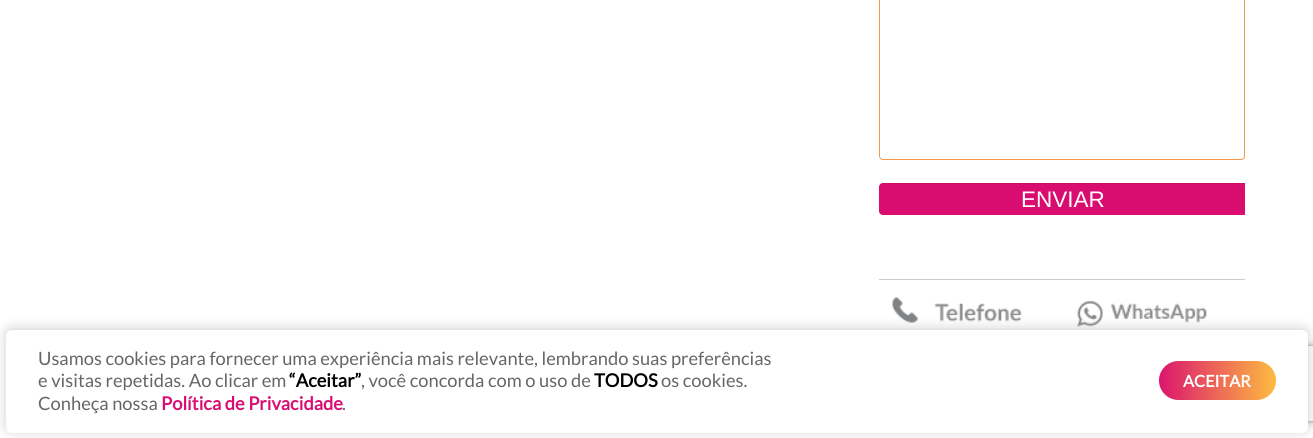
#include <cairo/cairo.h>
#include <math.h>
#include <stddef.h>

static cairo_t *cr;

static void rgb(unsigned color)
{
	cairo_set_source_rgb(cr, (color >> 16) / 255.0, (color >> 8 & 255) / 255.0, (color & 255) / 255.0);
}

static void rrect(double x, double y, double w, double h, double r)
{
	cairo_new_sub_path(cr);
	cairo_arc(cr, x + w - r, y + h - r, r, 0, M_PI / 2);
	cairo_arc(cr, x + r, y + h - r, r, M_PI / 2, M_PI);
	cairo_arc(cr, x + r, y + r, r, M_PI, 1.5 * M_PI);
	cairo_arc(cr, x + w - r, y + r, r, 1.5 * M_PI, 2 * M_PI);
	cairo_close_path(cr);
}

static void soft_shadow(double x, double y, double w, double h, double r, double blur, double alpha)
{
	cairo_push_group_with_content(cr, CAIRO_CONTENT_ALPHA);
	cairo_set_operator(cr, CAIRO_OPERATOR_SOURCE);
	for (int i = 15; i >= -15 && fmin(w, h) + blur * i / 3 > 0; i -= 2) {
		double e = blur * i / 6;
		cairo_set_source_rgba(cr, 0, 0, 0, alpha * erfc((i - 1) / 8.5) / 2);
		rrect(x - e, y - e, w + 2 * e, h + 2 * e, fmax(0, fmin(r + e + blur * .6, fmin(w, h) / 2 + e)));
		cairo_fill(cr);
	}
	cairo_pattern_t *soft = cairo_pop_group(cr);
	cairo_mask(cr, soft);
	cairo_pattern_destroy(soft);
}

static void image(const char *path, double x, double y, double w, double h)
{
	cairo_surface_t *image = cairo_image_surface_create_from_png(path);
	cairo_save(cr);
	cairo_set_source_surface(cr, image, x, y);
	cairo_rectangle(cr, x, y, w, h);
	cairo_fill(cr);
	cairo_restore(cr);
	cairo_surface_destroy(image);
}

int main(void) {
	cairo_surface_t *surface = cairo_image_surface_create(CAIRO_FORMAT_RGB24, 1313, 438);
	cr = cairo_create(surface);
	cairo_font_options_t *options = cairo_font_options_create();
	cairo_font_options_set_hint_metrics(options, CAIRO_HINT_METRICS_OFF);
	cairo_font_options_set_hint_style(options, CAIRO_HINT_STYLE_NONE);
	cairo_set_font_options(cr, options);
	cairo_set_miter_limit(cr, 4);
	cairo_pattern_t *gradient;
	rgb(0xffffff);
	cairo_paint(cr);
	rgb(0xcccccc);
	cairo_rectangle(cr, 879, 279, 366, 1);
	cairo_fill(cr);
	rrect(879.5, -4.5, 365, 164, 3.5);
	rgb(0xf5974a);
	cairo_set_line_width(cr, 1);
	cairo_stroke(cr);
	cairo_save(cr);
	cairo_rectangle(cr, 70, 0, 1175, 383);
	cairo_clip(cr);
	rgb(0xd90d70);
	rrect(879, 183, 369, 32, 4);
	cairo_fill(cr);
	cairo_restore(cr);
	cairo_set_source_rgba(cr, 0, 0, 0, 0.07);
	cairo_new_path(cr);
	cairo_move_to(cr, 882, 184);
	cairo_line_to(cr, 1244, 184);
	cairo_curve_to(cr, 1246, 184, 1248, 185, 1248, 188);
	cairo_curve_to(cr, 1248, 185, 1247, 183, 1244, 183);
	cairo_line_to(cr, 883, 183);
	cairo_curve_to(cr, 880, 183, 879, 185, 879, 188);
	cairo_curve_to(cr, 879, 185, 880, 184, 882, 184);
	cairo_close_path(cr);
	cairo_fill(cr);
	image("img/1.png", 892, 297, 332, 33);
	rgb(0xacabab);
	soft_shadow(6, 329, 1302, 102, 6, 6, 0.6);
	cairo_save(cr);
	cairo_set_fill_rule(cr, CAIRO_FILL_RULE_EVEN_ODD);
	cairo_new_path(cr);
	cairo_move_to(cr, 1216, 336);
	cairo_line_to(cr, 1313, 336);
	cairo_line_to(cr, 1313, 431);
	cairo_line_to(cr, 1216, 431);
	cairo_close_path(cr);
	cairo_move_to(cr, 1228.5, 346);
	cairo_line_to(cr, 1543.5, 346);
	cairo_curve_to(cr, 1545, 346, 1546, 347, 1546, 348.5);
	cairo_line_to(cr, 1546, 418.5);
	cairo_curve_to(cr, 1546, 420, 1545, 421, 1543.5, 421);
	cairo_line_to(cr, 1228.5, 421);
	cairo_curve_to(cr, 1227, 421, 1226, 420, 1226, 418.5);
	cairo_line_to(cr, 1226, 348.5);
	cairo_curve_to(cr, 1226, 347, 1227, 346, 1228.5, 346);
	cairo_close_path(cr);
	cairo_clip(cr);
	rgb(0x808080);
	soft_shadow(1226, 346, 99, 75, 2.5, 3, 1);
	cairo_restore(cr);
	rgb(0xffffff);
	rrect(6, 330, 1302, 103, 6);
	cairo_fill(cr);
	gradient = cairo_pattern_create_linear(1159, 381, 1276, 381);
	cairo_pattern_add_color_stop_rgba(gradient, 0, 0.859, 0.082, 0.431, 1);
	cairo_pattern_add_color_stop_rgba(gradient, 1, 0.992, 0.737, 0.255, 1);
	cairo_set_source(cr, gradient);
	cairo_pattern_destroy(gradient);
	rrect(1159, 361, 117, 39, 19.5);
	cairo_fill(cr);
	cairo_select_font_face(cr, "Liberation Sans", CAIRO_FONT_SLANT_NORMAL, CAIRO_FONT_WEIGHT_NORMAL);
	cairo_set_font_size(cr, 22.5);
	rgb(0xffffff);
	cairo_move_to(cr, 1021, 207);
	cairo_show_text(cr, "ENVIAR");
	cairo_select_font_face(cr, "Lato", CAIRO_FONT_SLANT_NORMAL, CAIRO_FONT_WEIGHT_NORMAL);
	cairo_set_font_size(cr, 18.35);
	rgb(0x666666);
	cairo_move_to(cr, 38, 365);
	cairo_show_text(cr, "Usamos cookies para fornecer uma experiência mais relevante, lembrando suas preferências");
	cairo_move_to(cr, 38, 387);
	cairo_show_text(cr, "e visitas repetidas. Ao clicar em");
	cairo_select_font_face(cr, "Lato", CAIRO_FONT_SLANT_NORMAL, CAIRO_FONT_WEIGHT_BOLD);
	rgb(0x000000);
	cairo_move_to(cr, 289, 387);
	cairo_show_text(cr, "“Aceitar”");
	cairo_select_font_face(cr, "Lato", CAIRO_FONT_SLANT_NORMAL, CAIRO_FONT_WEIGHT_NORMAL);
	rgb(0x666666);
	cairo_move_to(cr, 361, 387);
	cairo_show_text(cr, ", você concorda com o uso de");
	cairo_select_font_face(cr, "Lato", CAIRO_FONT_SLANT_NORMAL, CAIRO_FONT_WEIGHT_BOLD);
	rgb(0x000000);
	cairo_move_to(cr, 594, 387);
	cairo_show_text(cr, "TODOS");
	cairo_select_font_face(cr, "Lato", CAIRO_FONT_SLANT_NORMAL, CAIRO_FONT_WEIGHT_NORMAL);
	rgb(0x666666);
	cairo_move_to(cr, 661, 387);
	cairo_show_text(cr, "os cookies.");
	cairo_move_to(cr, 38, 410);
	cairo_show_text(cr, "Conheça nossa");
	cairo_select_font_face(cr, "Lato", CAIRO_FONT_SLANT_NORMAL, CAIRO_FONT_WEIGHT_BOLD);
	rgb(0xd90d72);
	cairo_move_to(cr, 161, 410);
	cairo_show_text(cr, "Política de Privacidade");
	cairo_select_font_face(cr, "Lato", CAIRO_FONT_SLANT_NORMAL, CAIRO_FONT_WEIGHT_NORMAL);
	rgb(0x666666);
	cairo_move_to(cr, 342, 410);
	cairo_show_text(cr, ".");
	cairo_select_font_face(cr, "Lato", CAIRO_FONT_SLANT_NORMAL, CAIRO_FONT_WEIGHT_BOLD);
	cairo_set_font_size(cr, 16.25);
	rgb(0xffffff);
	cairo_move_to(cr, 1183, 387);
	cairo_show_text(cr, "ACEITAR");
	cairo_surface_write_to_png(surface, "page.png");
	cairo_font_options_destroy(options);
	cairo_destroy(cr);
	cairo_surface_destroy(surface);
	return 0;
}
